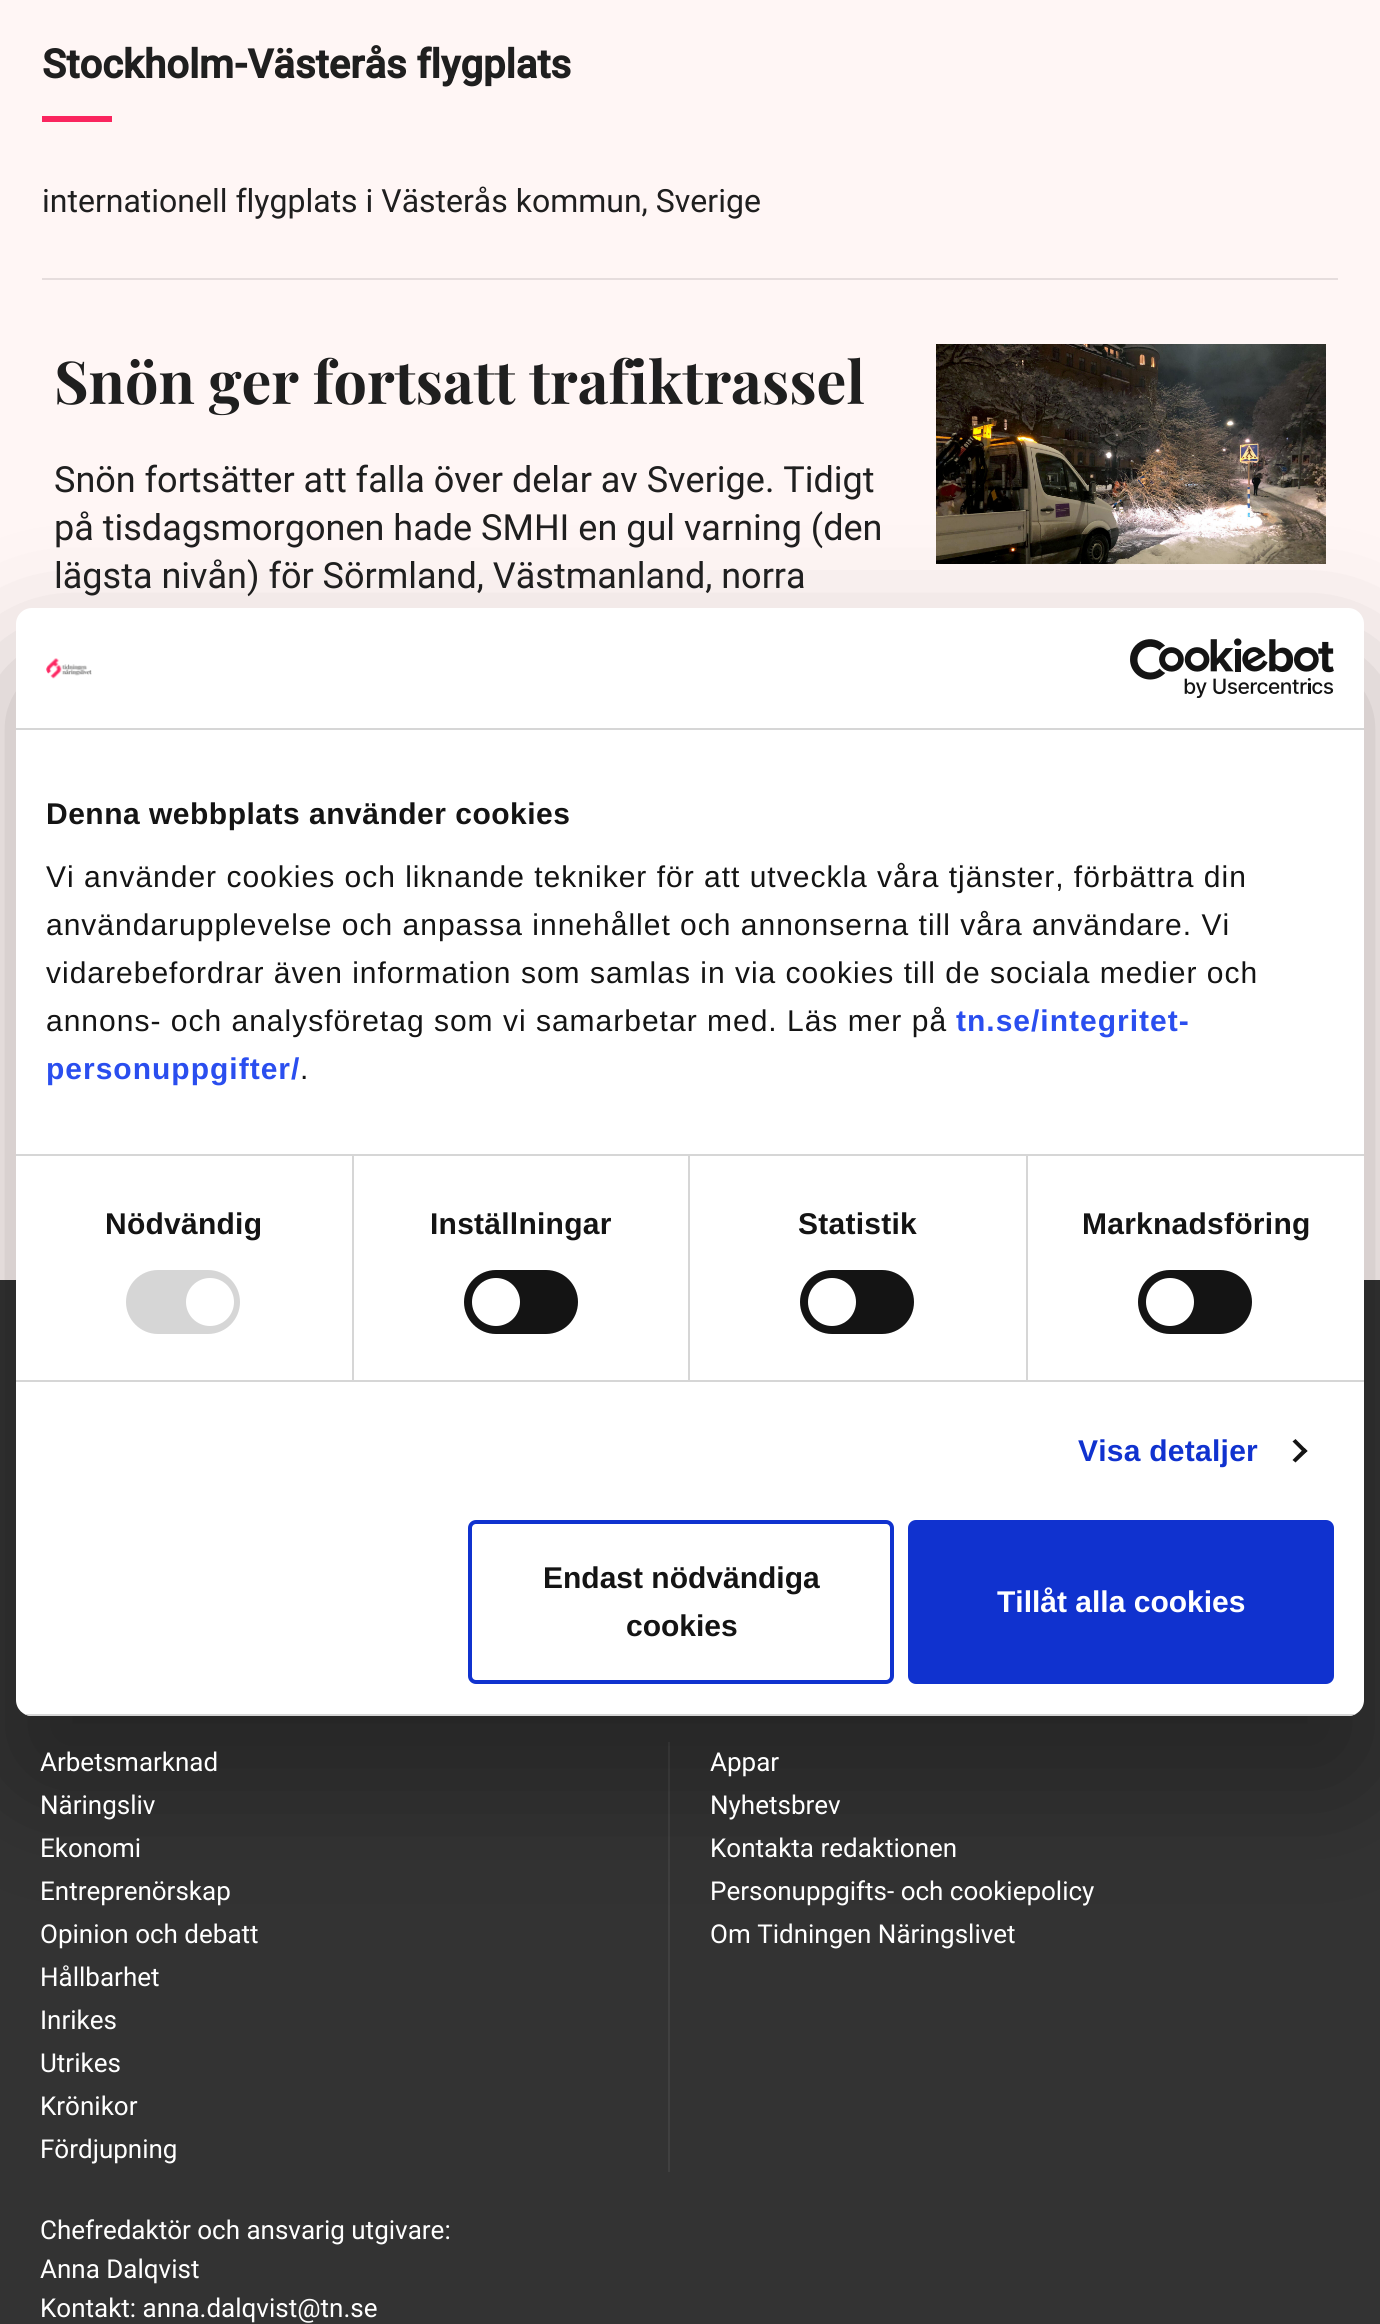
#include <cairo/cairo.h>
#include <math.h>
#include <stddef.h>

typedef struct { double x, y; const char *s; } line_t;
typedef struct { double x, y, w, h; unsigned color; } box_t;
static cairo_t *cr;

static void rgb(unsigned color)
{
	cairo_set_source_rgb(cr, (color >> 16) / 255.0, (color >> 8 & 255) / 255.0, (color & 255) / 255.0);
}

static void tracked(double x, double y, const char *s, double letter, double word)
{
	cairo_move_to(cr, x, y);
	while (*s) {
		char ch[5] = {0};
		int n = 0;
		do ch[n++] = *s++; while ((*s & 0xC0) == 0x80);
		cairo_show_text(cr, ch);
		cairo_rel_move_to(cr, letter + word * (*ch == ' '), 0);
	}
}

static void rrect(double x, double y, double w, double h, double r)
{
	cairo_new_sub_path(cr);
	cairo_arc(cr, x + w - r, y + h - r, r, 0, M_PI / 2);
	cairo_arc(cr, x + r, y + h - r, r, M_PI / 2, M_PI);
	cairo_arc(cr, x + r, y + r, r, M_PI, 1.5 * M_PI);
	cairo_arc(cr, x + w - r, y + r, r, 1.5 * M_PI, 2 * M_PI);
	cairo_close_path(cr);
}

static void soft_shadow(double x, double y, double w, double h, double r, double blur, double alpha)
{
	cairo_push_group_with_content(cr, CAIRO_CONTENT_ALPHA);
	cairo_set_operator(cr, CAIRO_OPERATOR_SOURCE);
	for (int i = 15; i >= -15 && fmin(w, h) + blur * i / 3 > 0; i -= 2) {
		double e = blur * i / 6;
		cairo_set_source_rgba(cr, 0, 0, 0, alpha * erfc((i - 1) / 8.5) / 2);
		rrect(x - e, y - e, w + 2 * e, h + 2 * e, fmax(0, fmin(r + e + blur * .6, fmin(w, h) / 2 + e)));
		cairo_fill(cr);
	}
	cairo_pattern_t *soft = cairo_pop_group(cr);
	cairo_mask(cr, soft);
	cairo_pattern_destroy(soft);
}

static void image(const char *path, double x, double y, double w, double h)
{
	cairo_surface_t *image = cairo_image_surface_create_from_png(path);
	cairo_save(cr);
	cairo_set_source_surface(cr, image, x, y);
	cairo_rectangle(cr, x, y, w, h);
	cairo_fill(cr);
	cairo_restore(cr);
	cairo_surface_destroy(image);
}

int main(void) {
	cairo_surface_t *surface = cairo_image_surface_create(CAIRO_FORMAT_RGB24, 1380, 2324);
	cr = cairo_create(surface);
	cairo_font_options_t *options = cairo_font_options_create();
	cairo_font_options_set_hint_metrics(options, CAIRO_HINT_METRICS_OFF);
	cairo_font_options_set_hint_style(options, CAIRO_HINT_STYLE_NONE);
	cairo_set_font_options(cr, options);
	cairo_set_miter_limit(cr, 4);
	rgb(0xfff6f5);
	cairo_paint(cr);
	rgb(0xfa255e);
	cairo_rectangle(cr, 42, 116, 70, 6);
	cairo_fill(cr);
	rgb(0xe6dddd);
	cairo_rectangle(cr, 42, 278, 1296, 2);
	cairo_fill(cr);
	image("img/1.png", 936, 344, 390, 220);
	rgb(0x333333);
	cairo_rectangle(cr, 0, 1280, 1380, 1044);
	cairo_fill(cr);
	rgb(0x404040);
	cairo_rectangle(cr, 668, 1742, 2, 430);
	cairo_fill(cr);
	rgb(0x000000);
	soft_shadow(16, 672, 1348, 1108, 16, 68, 0.3);
	rgb(0xffffff);
	rrect(16, 608, 1348, 1108, 16);
	cairo_fill(cr);
	rgb(0xd6d6d6);
	cairo_rectangle(cr, 16, 728, 1348, 2);
	cairo_fill(cr);
	image("img/2.png", 46, 658, 46, 21);
	image("img/3.png", 1130, 638, 204, 60);
	{
		static const box_t items[] = {
			{16, 1154, 1348, 2, 0xd6d6d6},
			{16, 1380, 1348, 2, 0xd6d6d6},
			{352, 1156, 2, 224, 0xd6d6d6},
		};
		for (size_t i = 0; i < sizeof items / sizeof *items; i++) {
			rgb(items[i].color);
			cairo_rectangle(cr, items[i].x, items[i].y, items[i].w, items[i].h);
			cairo_fill(cr);
		}
	}
	rrect(126, 1270, 114, 64, 32);
	cairo_fill(cr);
	rgb(0xffffff);
	cairo_arc(cr, 210, 1302, 24, 0, 2 * M_PI);
	cairo_fill(cr);
	rgb(0xd6d6d6);
	cairo_rectangle(cr, 688, 1156, 2, 224);
	cairo_fill(cr);
	rgb(0x141414);
	rrect(464, 1270, 114, 64, 32);
	cairo_fill(cr);
	rgb(0xffffff);
	cairo_arc(cr, 496, 1302, 24, 0, 2 * M_PI);
	cairo_fill(cr);
	rgb(0xd6d6d6);
	cairo_rectangle(cr, 1026, 1156, 2, 224);
	cairo_fill(cr);
	rgb(0x141414);
	rrect(800, 1270, 114, 64, 32);
	cairo_fill(cr);
	rgb(0xffffff);
	cairo_arc(cr, 832, 1302, 24, 0, 2 * M_PI);
	cairo_fill(cr);
	rgb(0x141414);
	rrect(1138, 1270, 114, 64, 32);
	cairo_fill(cr);
	rgb(0xffffff);
	cairo_arc(cr, 1170, 1302, 24, 0, 2 * M_PI);
	cairo_fill(cr);
	rgb(0x141414);
	cairo_new_path(cr);
	cairo_move_to(cr, 1295.5, 1439);
	cairo_line_to(cr, 1307.5, 1451);
	cairo_line_to(cr, 1304.5, 1453.5);
	cairo_line_to(cr, 1292.5, 1441.5);
	cairo_close_path(cr);
	cairo_fill(cr);
	cairo_new_path(cr);
	cairo_move_to(cr, 1304.5, 1448);
	cairo_line_to(cr, 1307.5, 1451);
	cairo_line_to(cr, 1295.5, 1462.5);
	cairo_line_to(cr, 1292.5, 1460);
	cairo_close_path(cr);
	cairo_fill(cr);
	cairo_save(cr);
	rrect(16, 608, 1348, 1108, 16);
	cairo_clip(cr);
	rgb(0xd6d6d6);
	cairo_rectangle(cr, 16, 1714, 1348, 2);
	cairo_fill(cr);
	cairo_restore(cr);
	rrect(470, 1522, 422, 160, 6);
	rgb(0x1032cf);
	cairo_set_line_width(cr, 4);
	cairo_stroke(cr);
	rrect(910, 1522, 422, 160, 6);
	cairo_fill_preserve(cr);
	cairo_stroke(cr);
	cairo_select_font_face(cr, "Roboto", CAIRO_FONT_SLANT_NORMAL, CAIRO_FONT_WEIGHT_BOLD);
	cairo_set_font_size(cr, 40);
	rgb(0x1f1f1f);
	cairo_move_to(cr, 42, 78);
	cairo_show_text(cr, "Stockholm-Västerås flygplats");
	cairo_select_font_face(cr, "Roboto", CAIRO_FONT_SLANT_NORMAL, CAIRO_FONT_WEIGHT_NORMAL);
	cairo_set_font_size(cr, 32);
	cairo_move_to(cr, 42, 212);
	cairo_show_text(cr, "internationell flygplats i Västerås kommun, Sverige");
	cairo_select_font_face(cr, "Playfair Display", CAIRO_FONT_SLANT_NORMAL, CAIRO_FONT_WEIGHT_BOLD);
	cairo_set_font_size(cr, 59.25);
	cairo_move_to(cr, 54, 404);
	cairo_show_text(cr, "Snön ger fortsatt trafiktrassel");
	cairo_select_font_face(cr, "Roboto", CAIRO_FONT_SLANT_NORMAL, CAIRO_FONT_WEIGHT_NORMAL);
	cairo_set_font_size(cr, 36);
	{
		static const line_t items[] = {
			{54, 492, "Snön fortsätter att falla över delar av Sverige. Tidigt"},
			{54, 540, "på tisdagsmorgonen hade SMHI en gul varning (den"},
			{54, 588, "lägsta nivån) för Sörmland, Västmanland, norra"},
		};
		for (size_t i = 0; i < sizeof items / sizeof *items; i++) {
			cairo_move_to(cr, items[i].x, items[i].y);
			cairo_show_text(cr, items[i].s);
		}
	}
	cairo_select_font_face(cr, "Liberation Sans", CAIRO_FONT_SLANT_NORMAL, CAIRO_FONT_WEIGHT_BOLD);
	cairo_set_font_size(cr, 30);
	rgb(0x141414);
	tracked(46, 824, "Denna webbplats använder cookies", 0.5, 0);
	cairo_select_font_face(cr, "Liberation Sans", CAIRO_FONT_SLANT_NORMAL, CAIRO_FONT_WEIGHT_NORMAL);
	{
		static const line_t items[] = {
			{46, 887, "Vi använder cookies och liknande tekniker för att utveckla våra tjänster, förbättra din"},
			{46, 935, "användarupplevelse och anpassa innehållet och annonserna till våra användare. Vi"},
			{46, 983, "vidarebefordrar även information som samlas in via cookies till de sociala medier och"},
			{46, 1031, "annons- och analysföretag som vi samarbetar med. Läs mer på"},
		};
		for (size_t i = 0; i < sizeof items / sizeof *items; i++) {
			tracked(items[i].x, items[i].y, items[i].s, 1, 0);
		}
	}
	cairo_select_font_face(cr, "Liberation Sans", CAIRO_FONT_SLANT_NORMAL, CAIRO_FONT_WEIGHT_BOLD);
	rgb(0x2a4eef);
	tracked(956, 1031, "tn.se/integritet-", 1, 0);
	tracked(46, 1079, "personuppgifter/", 1, 0);
	cairo_select_font_face(cr, "Liberation Sans", CAIRO_FONT_SLANT_NORMAL, CAIRO_FONT_WEIGHT_NORMAL);
	rgb(0x141414);
	tracked(300, 1079, ".", 1, 0);
	cairo_select_font_face(cr, "Liberation Sans", CAIRO_FONT_SLANT_NORMAL, CAIRO_FONT_WEIGHT_BOLD);
	{
		static const line_t items[] = {
			{105, 1234, "Nödvändig"},
			{430, 1234, "Inställningar"},
			{798, 1234, "Statistik"},
			{1082, 1234, "Marknadsföring"},
		};
		for (size_t i = 0; i < sizeof items / sizeof *items; i++) {
			tracked(items[i].x, items[i].y, items[i].s, 0.25, 0);
		}
	}
	rgb(0x1032cf);
	tracked(1078, 1461, "Visa detaljer", 0.25, 0);
	rgb(0x141414);
	cairo_move_to(cr, 543, 1588);
	cairo_show_text(cr, "Endast nödvändiga");
	cairo_move_to(cr, 626, 1636);
	cairo_show_text(cr, "cookies");
	rgb(0xffffff);
	cairo_move_to(cr, 997, 1612);
	cairo_show_text(cr, "Tillåt alla cookies");
	cairo_select_font_face(cr, "Roboto", CAIRO_FONT_SLANT_NORMAL, CAIRO_FONT_WEIGHT_NORMAL);
	cairo_set_font_size(cr, 26);
	{
		static const line_t items[] = {
			{40, 1771, "Arbetsmarknad"},
			{40, 1814, "Näringsliv"},
			{40, 1857, "Ekonomi"},
			{40, 1900, "Entreprenörskap"},
			{40, 1943, "Opinion och debatt"},
			{40, 1986, "Hållbarhet"},
			{40, 2029, "Inrikes"},
			{40, 2072, "Utrikes"},
			{40, 2115, "Krönikor"},
			{40, 2158, "Fördjupning"},
			{710, 1771, "Appar"},
			{710, 1814, "Nyhetsbrev"},
			{710, 1857, "Kontakta redaktionen"},
			{710, 1900, "Personuppgifts- och cookiepolicy"},
			{710, 1943, "Om Tidningen Näringslivet"},
			{40, 2239, "Chefredaktör och ansvarig utgivare:"},
			{40, 2278, "Anna Dalqvist"},
			{40, 2317, "Kontakt: anna.dalqvist@tn.se"},
		};
		for (size_t i = 0; i < sizeof items / sizeof *items; i++) {
			cairo_move_to(cr, items[i].x, items[i].y);
			cairo_show_text(cr, items[i].s);
		}
	}
	cairo_surface_write_to_png(surface, "page.png");
	cairo_font_options_destroy(options);
	cairo_destroy(cr);
	cairo_surface_destroy(surface);
	return 0;
}
